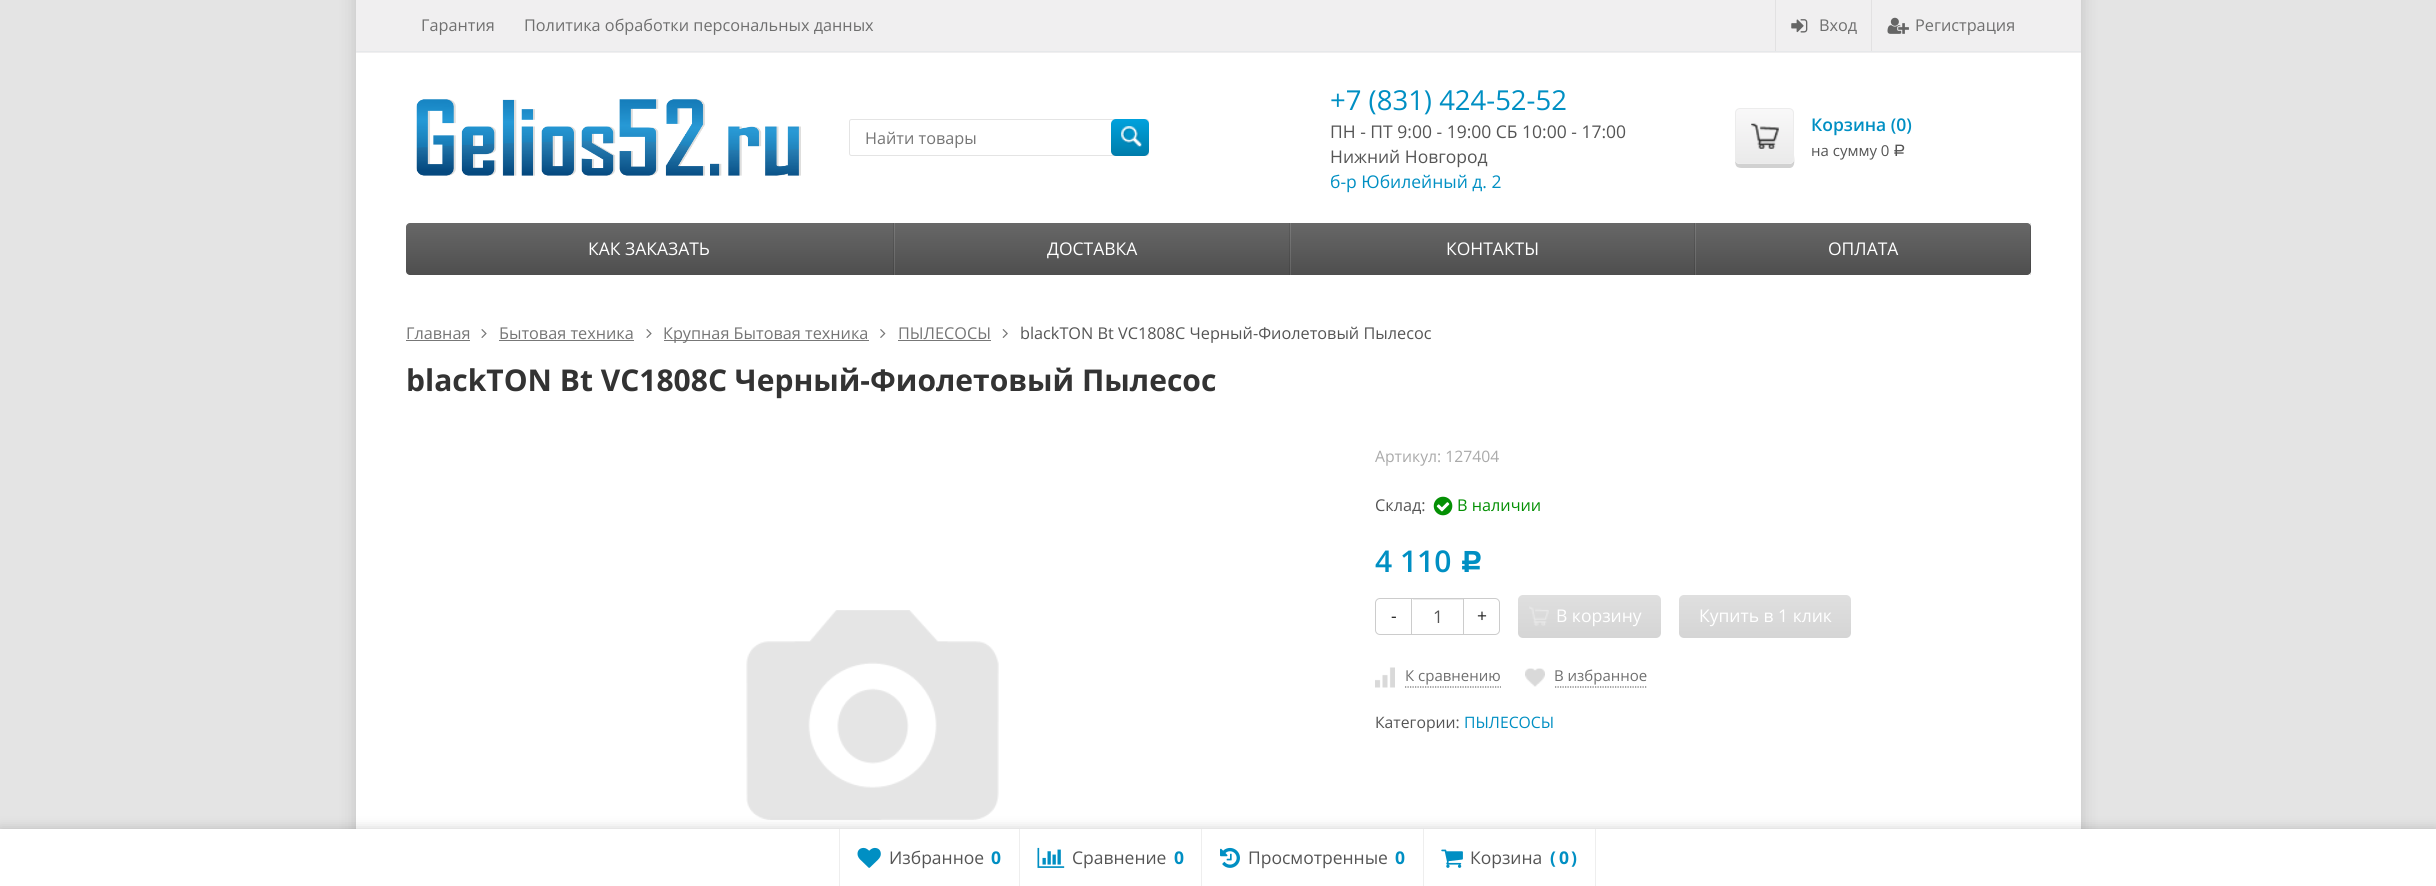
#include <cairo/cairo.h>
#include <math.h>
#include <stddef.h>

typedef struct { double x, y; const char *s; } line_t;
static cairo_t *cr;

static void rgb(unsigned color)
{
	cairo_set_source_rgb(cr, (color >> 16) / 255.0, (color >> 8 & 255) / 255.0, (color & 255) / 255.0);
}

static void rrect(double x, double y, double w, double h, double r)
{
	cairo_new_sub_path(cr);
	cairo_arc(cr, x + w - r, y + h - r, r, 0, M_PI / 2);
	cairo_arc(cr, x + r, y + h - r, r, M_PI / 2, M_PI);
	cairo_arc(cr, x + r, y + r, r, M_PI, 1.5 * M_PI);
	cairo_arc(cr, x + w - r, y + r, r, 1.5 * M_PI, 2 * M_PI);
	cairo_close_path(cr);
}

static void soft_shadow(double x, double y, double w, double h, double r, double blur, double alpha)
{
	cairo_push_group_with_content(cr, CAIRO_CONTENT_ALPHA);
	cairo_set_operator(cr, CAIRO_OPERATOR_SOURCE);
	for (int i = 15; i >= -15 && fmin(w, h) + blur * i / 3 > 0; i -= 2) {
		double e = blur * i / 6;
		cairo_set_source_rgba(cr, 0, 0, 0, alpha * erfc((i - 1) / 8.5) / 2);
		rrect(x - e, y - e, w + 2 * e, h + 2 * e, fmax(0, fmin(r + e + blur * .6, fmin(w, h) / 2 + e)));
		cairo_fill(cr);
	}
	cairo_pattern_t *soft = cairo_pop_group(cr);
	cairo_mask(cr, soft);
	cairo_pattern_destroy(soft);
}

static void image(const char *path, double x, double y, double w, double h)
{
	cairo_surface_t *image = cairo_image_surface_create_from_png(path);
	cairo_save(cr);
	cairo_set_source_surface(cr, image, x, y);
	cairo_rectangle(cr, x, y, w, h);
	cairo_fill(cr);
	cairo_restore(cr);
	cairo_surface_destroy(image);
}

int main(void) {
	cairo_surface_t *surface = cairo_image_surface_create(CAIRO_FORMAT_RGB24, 2436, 886);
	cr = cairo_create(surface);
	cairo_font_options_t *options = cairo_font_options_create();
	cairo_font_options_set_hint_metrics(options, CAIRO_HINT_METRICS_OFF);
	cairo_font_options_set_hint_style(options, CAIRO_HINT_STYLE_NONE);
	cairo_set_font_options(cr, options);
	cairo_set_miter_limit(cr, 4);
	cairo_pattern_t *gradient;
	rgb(0xe4e4e4);
	cairo_paint(cr);
	rgb(0x000000);
	soft_shadow(356, -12, 1725, 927, 0, 9.5, 0.15);
	rgb(0xffffff);
	cairo_rectangle(cr, 356, 53, 1725, 776);
	cairo_fill(cr);
	rgb(0xf0eff0);
	cairo_rectangle(cr, 356, 0, 1725, 53);
	cairo_fill(cr);
	rgb(0xe6e8ea);
	rrect(356, 51, 1725, 1, 0.5);
	cairo_fill(cr);
	rgb(0xe2e1e2);
	cairo_rectangle(cr, 1775, 0, 1, 51);
	cairo_fill(cr);
	image("img/1.png", 1791, 19, 17, 14);
	cairo_rectangle(cr, 1871, 0, 1, 51);
	cairo_fill(cr);
	image("img/2.png", 1887, 17, 22, 17);
	image("img/3.png", 416, 99, 385, 77);
	rrect(849.5, 119.5, 299, 36, 2);
	rgb(0xe4e4e4);
	cairo_set_line_width(cr, 1);
	cairo_stroke(cr);
	gradient = cairo_pattern_create_linear(1130, 119, 1130, 156);
	cairo_pattern_add_color_stop_rgba(gradient, 0, 0, 0.635, 0.867, 1);
	cairo_pattern_add_color_stop_rgba(gradient, 1, 0, 0.486, 0.667, 1);
	cairo_set_source(cr, gradient);
	cairo_pattern_destroy(gradient);
	rrect(1111, 119, 38, 37, 5);
	cairo_fill(cr);
	image("img/4.png", 1121, 126, 21, 21);
	rgb(0xd1d1d1);
	cairo_new_path(cr);
	cairo_move_to(cr, 1735, 159);
	cairo_curve_to(cr, 1735, 169, 1738, 168, 1748, 168);
	cairo_line_to(cr, 1790, 168);
	cairo_curve_to(cr, 1796, 167, 1794, 159, 1794, 155);
	cairo_line_to(cr, 1794, 114);
	cairo_line_to(cr, 1794, 159);
	cairo_curve_to(cr, 1794, 162, 1792, 164, 1789, 164);
	cairo_line_to(cr, 1740, 164);
	cairo_curve_to(cr, 1737, 164, 1735, 162, 1735, 159);
	cairo_close_path(cr);
	cairo_fill(cr);
	cairo_save(cr);
	rrect(1735, 108, 59, 56, 5);
	cairo_clip(cr);
	gradient = cairo_pattern_create_linear(1764, 109, 1764, 163);
	cairo_pattern_add_color_stop_rgba(gradient, 0, 0.976, 0.973, 0.976, 1);
	cairo_pattern_add_color_stop_rgba(gradient, 1, 0.918, 0.918, 0.918, 1);
	cairo_set_source(cr, gradient);
	cairo_pattern_destroy(gradient);
	cairo_rectangle(cr, 1735, 109, 59, 54);
	cairo_fill(cr);
	cairo_restore(cr);
	rrect(1735.5, 108.5, 58, 55, 4.5);
	rgb(0xececec);
	cairo_stroke(cr);
	image("img/5.png", 1751, 123, 28, 26);
	gradient = cairo_pattern_create_linear(1219, 222, 1219, 275);
	cairo_pattern_add_color_stop_rgba(gradient, 0, 0.408, 0.408, 0.408, 1);
	cairo_pattern_add_color_stop_rgba(gradient, 1, 0.306, 0.306, 0.306, 1);
	cairo_set_source(cr, gradient);
	cairo_pattern_destroy(gradient);
	rrect(406, 223, 1625, 52, 4);
	cairo_fill(cr);
	gradient = cairo_pattern_create_linear(1219, 222, 1219, 275);
	cairo_pattern_add_color_stop_rgba(gradient, 0, 0.478, 0.478, 0.478, 1);
	cairo_pattern_add_color_stop_rgba(gradient, 1, 0.388, 0.388, 0.388, 1);
	cairo_set_source(cr, gradient);
	cairo_pattern_destroy(gradient);
	cairo_rectangle(cr, 1695, 223, 1, 52);
	cairo_fill(cr);
	cairo_rectangle(cr, 1290, 223, 1, 52);
	cairo_fill(cr);
	gradient = cairo_pattern_create_linear(1219, 222, 1219, 275);
	cairo_pattern_add_color_stop_rgba(gradient, 0, 0.361, 0.361, 0.361, 1);
	cairo_pattern_add_color_stop_rgba(gradient, 1, 0.271, 0.271, 0.271, 1);
	cairo_set_source(cr, gradient);
	cairo_pattern_destroy(gradient);
	cairo_rectangle(cr, 1694, 223, 1, 52);
	cairo_fill(cr);
	gradient = cairo_pattern_create_linear(1219, 222, 1219, 275);
	cairo_pattern_add_color_stop_rgba(gradient, 0, 0.478, 0.478, 0.478, 1);
	cairo_pattern_add_color_stop_rgba(gradient, 1, 0.388, 0.388, 0.388, 1);
	cairo_set_source(cr, gradient);
	cairo_pattern_destroy(gradient);
	cairo_rectangle(cr, 894, 223, 1, 52);
	cairo_fill(cr);
	gradient = cairo_pattern_create_linear(1219, 222, 1219, 275);
	cairo_pattern_add_color_stop_rgba(gradient, 0, 0.361, 0.361, 0.361, 1);
	cairo_pattern_add_color_stop_rgba(gradient, 1, 0.271, 0.271, 0.271, 1);
	cairo_set_source(cr, gradient);
	cairo_pattern_destroy(gradient);
	cairo_rectangle(cr, 1289, 223, 1, 52);
	cairo_fill(cr);
	cairo_rectangle(cr, 893, 223, 1, 52);
	cairo_fill(cr);
	cairo_set_source_rgba(cr, 0, 0, 0, 0.12);
	cairo_rectangle(cr, 2030, 223, 1, 52);
	cairo_fill(cr);
	rgb(0x777777);
	cairo_rectangle(cr, 406, 340, 64, 1);
	cairo_fill(cr);
	image("img/6.png", 481, 329, 6, 9);
	cairo_rectangle(cr, 499, 340, 135, 1);
	cairo_fill(cr);
	image("img/6.png", 646, 329, 6, 9);
	cairo_rectangle(cr, 664, 340, 205, 1);
	cairo_fill(cr);
	image("img/7.png", 880, 329, 6, 9);
	cairo_rectangle(cr, 898, 340, 93, 1);
	cairo_fill(cr);
	image("img/8.png", 1002, 329, 6, 9);
	image("img/9.png", 746, 610, 253, 210);
	image("img/10.png", 1433, 496, 20, 20);
	cairo_new_path(cr);
	cairo_move_to(cr, 1380, 598.5);
	cairo_line_to(cr, 1412.5, 598.5);
	cairo_line_to(cr, 1412.5, 634.5);
	cairo_line_to(cr, 1380, 634.5);
	cairo_curve_to(cr, 1377.5, 634.5, 1375.5, 632.5, 1375.5, 630);
	cairo_line_to(cr, 1375.5, 603);
	cairo_curve_to(cr, 1375.5, 600.5, 1377.5, 598.5, 1380, 598.5);
	cairo_close_path(cr);
	rgb(0xcccccc);
	cairo_stroke(cr);
	rgb(0xffffff);
	cairo_rectangle(cr, 1412, 599, 1, 35);
	cairo_fill(cr);
	rgb(0xececec);
	cairo_rectangle(cr, 1413, 599, 50, 1);
	cairo_fill(cr);
	cairo_new_path(cr);
	cairo_move_to(cr, 1463.5, 598.5);
	cairo_line_to(cr, 1495, 598.5);
	cairo_curve_to(cr, 1497.5, 598.5, 1499.5, 600.5, 1499.5, 603);
	cairo_line_to(cr, 1499.5, 630);
	cairo_curve_to(cr, 1499.5, 632.5, 1497.5, 634.5, 1495, 634.5);
	cairo_line_to(cr, 1463.5, 634.5);
	cairo_close_path(cr);
	rgb(0xcccccc);
	cairo_stroke(cr);
	cairo_rectangle(cr, 1411.5, 598.5, 52, 36);
	cairo_stroke(cr);
	gradient = cairo_pattern_create_linear(1589, 595, 1589, 638);
	cairo_pattern_add_color_stop_rgba(gradient, 0, 0.875, 0.875, 0.875, 1);
	cairo_pattern_add_color_stop_rgba(gradient, 1, 0.835, 0.835, 0.835, 1);
	cairo_set_source(cr, gradient);
	cairo_pattern_destroy(gradient);
	rrect(1518, 595, 143, 43, 5);
	cairo_fill(cr);
	image("img/11.png", 1529, 606, 20, 20);
	gradient = cairo_pattern_create_linear(1765, 595, 1765, 638);
	cairo_pattern_add_color_stop_rgba(gradient, 0, 0.875, 0.875, 0.875, 1);
	cairo_pattern_add_color_stop_rgba(gradient, 1, 0.835, 0.835, 0.835, 1);
	cairo_set_source(cr, gradient);
	cairo_pattern_destroy(gradient);
	rrect(1679, 595, 172, 43, 5);
	cairo_fill(cr);
	image("img/12.png", 1375, 667, 20, 21);
	cairo_new_path(cr);
	cairo_move_to(cr, 1405, 687);
	cairo_line_to(cr, 1501, 687);
	rgb(0x6c6c6c);
	cairo_set_line_width(cr, 1.2);
	cairo_set_dash(cr, (double[]){1.25, 1.25}, 2, 0);
	cairo_stroke(cr);
	image("img/13.png", 1525, 668, 20, 19);
	cairo_new_path(cr);
	cairo_move_to(cr, 1555, 687);
	cairo_line_to(cr, 1647.5, 687);
	cairo_stroke(cr);
	rgb(0x000000);
	soft_shadow(0, 829, 2436, 57, 0, 6, 0.2);
	rgb(0xffffff);
	cairo_rectangle(cr, 0, 829, 2436, 57);
	cairo_fill(cr);
	rgb(0xeeeeee);
	cairo_rectangle(cr, 839, 829, 1, 57);
	cairo_fill(cr);
	image("img/14.png", 857, 847, 24, 21);
	cairo_rectangle(cr, 1019, 829, 1, 57);
	cairo_fill(cr);
	image("img/15.png", 1037, 847, 28, 21);
	cairo_rectangle(cr, 1201, 829, 1, 57);
	cairo_fill(cr);
	image("img/16.png", 1220, 847, 20, 21);
	cairo_rectangle(cr, 1595, 829, 1, 57);
	cairo_fill(cr);
	cairo_rectangle(cr, 1423, 829, 1, 57);
	cairo_fill(cr);
	image("img/17.png", 1441, 849, 22, 19);
	cairo_select_font_face(cr, "Open Sans", CAIRO_FONT_SLANT_NORMAL, CAIRO_FONT_WEIGHT_NORMAL);
	cairo_set_font_size(cr, 16.25);
	rgb(0x6f6f6f);
	{
		static const line_t items[] = {
			{421, 31, "Гарантия"},
			{524, 31, "Политика обработки персональных данных"},
			{1819, 31, "Вход"},
			{1915, 31, "Регистрация"},
		};
		for (size_t i = 0; i < sizeof items / sizeof *items; i++) {
			cairo_move_to(cr, items[i].x, items[i].y);
			cairo_show_text(cr, items[i].s);
		}
	}
	rgb(0x757575);
	cairo_move_to(cr, 865, 144);
	cairo_show_text(cr, "Найти товары");
	cairo_set_font_size(cr, 27.5);
	rgb(0x008fc3);
	cairo_move_to(cr, 1330, 110);
	cairo_show_text(cr, "+7 (831) 424-52-52");
	cairo_set_font_size(cr, 17.5);
	rgb(0x555555);
	cairo_move_to(cr, 1330, 138);
	cairo_show_text(cr, "ПН - ПТ 9:00 - 19:00 СБ 10:00 - 17:00");
	cairo_move_to(cr, 1330, 163);
	cairo_show_text(cr, "Нижний Новгород");
	rgb(0x008fc3);
	cairo_move_to(cr, 1330, 188);
	cairo_show_text(cr, "б-р Юбилейный д. 2");
	cairo_select_font_face(cr, "Open Sans SemiBold", CAIRO_FONT_SLANT_NORMAL, CAIRO_FONT_WEIGHT_NORMAL);
	cairo_move_to(cr, 1811, 131);
	cairo_show_text(cr, "Корзина (0)");
	cairo_select_font_face(cr, "Open Sans", CAIRO_FONT_SLANT_NORMAL, CAIRO_FONT_WEIGHT_NORMAL);
	cairo_set_font_size(cr, 15);
	rgb(0x555555);
	cairo_move_to(cr, 1811, 156);
	cairo_show_text(cr, "на сумму 0");
	cairo_select_font_face(cr, "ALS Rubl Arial", CAIRO_FONT_SLANT_NORMAL, CAIRO_FONT_WEIGHT_NORMAL);
	cairo_set_font_size(cr, 16.25);
	cairo_move_to(cr, 1893, 156);
	cairo_show_text(cr, "Р");
	cairo_select_font_face(cr, "Open Sans", CAIRO_FONT_SLANT_NORMAL, CAIRO_FONT_WEIGHT_NORMAL);
	cairo_set_font_size(cr, 17.5);
	rgb(0xffffff);
	{
		static const line_t items[] = {
			{588, 255, "КАК ЗАКАЗАТЬ"},
			{1047, 255, "ДОСТАВКА"},
			{1446, 255, "КОНТАКТЫ"},
			{1828, 255, "ОПЛАТА"},
		};
		for (size_t i = 0; i < sizeof items / sizeof *items; i++) {
			cairo_move_to(cr, items[i].x, items[i].y);
			cairo_show_text(cr, items[i].s);
		}
	}
	cairo_set_font_size(cr, 16.25);
	rgb(0x757575);
	{
		static const line_t items[] = {
			{406, 339, "Главная"},
			{499, 339, "Бытовая техника"},
			{663, 339, "Крупная Бытовая техника"},
			{898, 339, "ПЫЛЕСОСЫ"},
		};
		for (size_t i = 0; i < sizeof items / sizeof *items; i++) {
			cairo_move_to(cr, items[i].x, items[i].y);
			cairo_show_text(cr, items[i].s);
		}
	}
	rgb(0x555555);
	cairo_move_to(cr, 1020, 339);
	cairo_show_text(cr, "blackTON Bt VC1808C Черный-Фиолетовый Пылесос");
	cairo_select_font_face(cr, "Open Sans", CAIRO_FONT_SLANT_NORMAL, CAIRO_FONT_WEIGHT_BOLD);
	cairo_set_font_size(cr, 30);
	rgb(0x333333);
	cairo_move_to(cr, 406, 391);
	cairo_show_text(cr, "blackTON Bt VC1808C Черный-Фиолетовый Пылесос");
	cairo_select_font_face(cr, "Open Sans", CAIRO_FONT_SLANT_NORMAL, CAIRO_FONT_WEIGHT_NORMAL);
	cairo_set_font_size(cr, 15.75);
	rgb(0xaaaaaa);
	cairo_move_to(cr, 1375, 462);
	cairo_show_text(cr, "Артикул: 127404");
	cairo_set_font_size(cr, 16.25);
	rgb(0x555555);
	cairo_move_to(cr, 1375, 511);
	cairo_show_text(cr, "Склад:");
	rgb(0x049004);
	cairo_move_to(cr, 1457, 511);
	cairo_show_text(cr, "В наличии");
	cairo_select_font_face(cr, "Open Sans SemiBold", CAIRO_FONT_SLANT_NORMAL, CAIRO_FONT_WEIGHT_NORMAL);
	cairo_set_font_size(cr, 30);
	rgb(0x008fc3);
	cairo_move_to(cr, 1375, 572);
	cairo_show_text(cr, "4 110");
	cairo_select_font_face(cr, "ALS Rubl Arial", CAIRO_FONT_SLANT_NORMAL, CAIRO_FONT_WEIGHT_BOLD);
	cairo_move_to(cr, 1460, 572);
	cairo_show_text(cr, "Р");
	cairo_select_font_face(cr, "Open Sans", CAIRO_FONT_SLANT_NORMAL, CAIRO_FONT_WEIGHT_NORMAL);
	cairo_set_font_size(cr, 17.5);
	rgb(0x222222);
	cairo_move_to(cr, 1391, 622);
	cairo_show_text(cr, "-");
	rgb(0x555555);
	cairo_move_to(cr, 1433, 623);
	cairo_show_text(cr, "1");
	rgb(0x222222);
	cairo_move_to(cr, 1477, 622);
	cairo_show_text(cr, "+");
	rgb(0xffffff);
	cairo_move_to(cr, 1556, 622);
	cairo_show_text(cr, "В корзину");
	cairo_move_to(cr, 1699, 622);
	cairo_show_text(cr, "Купить в 1 клик");
	cairo_set_font_size(cr, 15);
	rgb(0x6f6f6f);
	cairo_move_to(cr, 1405, 681);
	cairo_show_text(cr, "К сравнению");
	cairo_move_to(cr, 1554, 681);
	cairo_show_text(cr, "В избранное");
	cairo_set_font_size(cr, 15.75);
	rgb(0x555555);
	cairo_move_to(cr, 1375, 728);
	cairo_show_text(cr, "Категории:");
	rgb(0x008fc3);
	cairo_move_to(cr, 1464, 728);
	cairo_show_text(cr, "ПЫЛЕСОСЫ");
	cairo_set_font_size(cr, 17.5);
	rgb(0x555555);
	cairo_move_to(cr, 889, 864);
	cairo_show_text(cr, "Избранное");
	cairo_select_font_face(cr, "Open Sans", CAIRO_FONT_SLANT_NORMAL, CAIRO_FONT_WEIGHT_BOLD);
	rgb(0x008fc3);
	cairo_move_to(cr, 991, 864);
	cairo_show_text(cr, "0");
	cairo_select_font_face(cr, "Open Sans", CAIRO_FONT_SLANT_NORMAL, CAIRO_FONT_WEIGHT_NORMAL);
	rgb(0x555555);
	cairo_move_to(cr, 1072, 864);
	cairo_show_text(cr, "Сравнение");
	cairo_select_font_face(cr, "Open Sans", CAIRO_FONT_SLANT_NORMAL, CAIRO_FONT_WEIGHT_BOLD);
	rgb(0x008fc3);
	cairo_move_to(cr, 1174, 864);
	cairo_show_text(cr, "0");
	cairo_select_font_face(cr, "Open Sans", CAIRO_FONT_SLANT_NORMAL, CAIRO_FONT_WEIGHT_NORMAL);
	rgb(0x555555);
	cairo_move_to(cr, 1248, 864);
	cairo_show_text(cr, "Просмотренные");
	cairo_select_font_face(cr, "Open Sans", CAIRO_FONT_SLANT_NORMAL, CAIRO_FONT_WEIGHT_BOLD);
	rgb(0x008fc3);
	cairo_move_to(cr, 1395, 864);
	cairo_show_text(cr, "0");
	cairo_select_font_face(cr, "Open Sans", CAIRO_FONT_SLANT_NORMAL, CAIRO_FONT_WEIGHT_NORMAL);
	rgb(0x555555);
	cairo_move_to(cr, 1470, 864);
	cairo_show_text(cr, "Корзина");
	cairo_select_font_face(cr, "Open Sans", CAIRO_FONT_SLANT_NORMAL, CAIRO_FONT_WEIGHT_BOLD);
	rgb(0x008fc3);
	{
		static const line_t items[] = {
			{1550, 864, "("},
			{1559, 864, "0"},
			{1571, 864, ")"},
		};
		for (size_t i = 0; i < sizeof items / sizeof *items; i++) {
			cairo_move_to(cr, items[i].x, items[i].y);
			cairo_show_text(cr, items[i].s);
		}
	}
	cairo_surface_write_to_png(surface, "page.png");
	cairo_font_options_destroy(options);
	cairo_destroy(cr);
	cairo_surface_destroy(surface);
	return 0;
}
